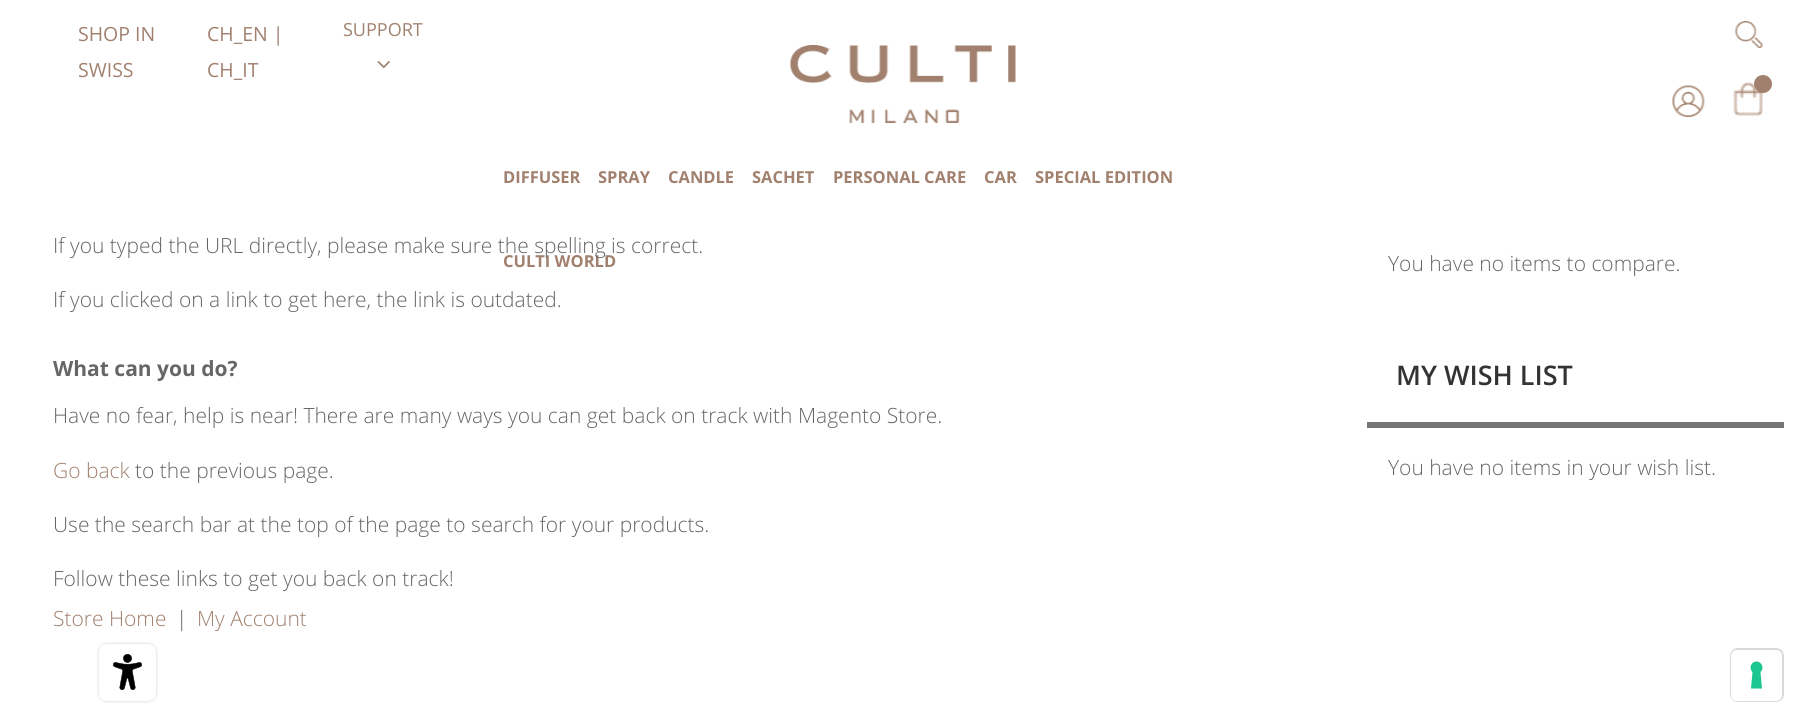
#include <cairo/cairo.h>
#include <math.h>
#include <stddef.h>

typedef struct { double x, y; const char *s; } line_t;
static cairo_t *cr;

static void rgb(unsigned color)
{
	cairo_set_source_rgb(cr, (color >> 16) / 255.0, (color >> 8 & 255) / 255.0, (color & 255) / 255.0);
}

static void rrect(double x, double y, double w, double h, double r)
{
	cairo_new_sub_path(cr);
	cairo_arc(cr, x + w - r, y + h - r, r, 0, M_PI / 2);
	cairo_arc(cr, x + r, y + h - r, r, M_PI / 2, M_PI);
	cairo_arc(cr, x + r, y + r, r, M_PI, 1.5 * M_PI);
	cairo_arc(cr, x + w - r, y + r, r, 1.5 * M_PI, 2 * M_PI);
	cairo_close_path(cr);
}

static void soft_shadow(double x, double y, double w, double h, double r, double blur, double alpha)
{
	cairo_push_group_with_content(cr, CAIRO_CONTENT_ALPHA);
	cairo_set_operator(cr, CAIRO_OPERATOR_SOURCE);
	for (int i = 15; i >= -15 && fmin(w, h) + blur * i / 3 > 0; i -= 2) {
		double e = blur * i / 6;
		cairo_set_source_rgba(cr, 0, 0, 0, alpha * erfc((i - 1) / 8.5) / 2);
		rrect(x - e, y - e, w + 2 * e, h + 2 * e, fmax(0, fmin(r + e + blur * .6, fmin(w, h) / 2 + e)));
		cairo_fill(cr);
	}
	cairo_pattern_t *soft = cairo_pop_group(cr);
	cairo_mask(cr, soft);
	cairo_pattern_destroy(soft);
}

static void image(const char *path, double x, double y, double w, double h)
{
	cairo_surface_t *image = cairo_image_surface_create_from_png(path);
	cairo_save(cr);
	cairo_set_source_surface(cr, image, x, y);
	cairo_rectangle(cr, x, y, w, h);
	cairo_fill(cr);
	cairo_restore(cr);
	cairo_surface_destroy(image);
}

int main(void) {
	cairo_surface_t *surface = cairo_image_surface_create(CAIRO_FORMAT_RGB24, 1806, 724);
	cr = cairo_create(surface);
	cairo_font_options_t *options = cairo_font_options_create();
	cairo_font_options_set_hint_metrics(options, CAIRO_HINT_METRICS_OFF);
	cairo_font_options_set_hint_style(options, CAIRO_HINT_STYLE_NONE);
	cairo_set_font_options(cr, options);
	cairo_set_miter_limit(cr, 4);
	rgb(0xffffff);
	cairo_paint(cr);
	image("img/1.png", 377, 61, 13, 8);
	image("img/2.png", 1735, 21, 28, 27);
	image("img/3.png", 1672, 85, 33, 32);
	image("img/4.png", 1733, 82, 30, 34);
	rgb(0xa1806e);
	cairo_arc(cr, 1763, 84, 9, 0, 2 * M_PI);
	cairo_fill(cr);
	image("img/5.png", 790, 45, 226, 78);
	rgb(0x757477);
	cairo_rectangle(cr, 1367, 422, 417, 6);
	cairo_fill(cr);
	rgb(0x000000);
	soft_shadow(99, 644, 57, 57, 8, 1.5, 0.2);
	rgb(0xffffff);
	rrect(99, 644, 57, 57, 8);
	cairo_fill(cr);
	image("img/6.png", 113, 654, 29, 36);
	rrect(1731, 649, 52, 52, 7);
	rgb(0xd9d9d9);
	cairo_stroke(cr);
	rgb(0xffffff);
	rrect(1731, 650, 51, 51, 6);
	cairo_fill(cr);
	rgb(0x1cc691);
	cairo_set_fill_rule(cr, CAIRO_FILL_RULE_EVEN_ODD);
	cairo_new_path(cr);
	cairo_move_to(cr, 1756.5, 661.5);
	cairo_curve_to(cr, 1762, 661.5, 1764.5, 668.5, 1760.5, 672);
	cairo_line_to(cr, 1762, 688.5);
	cairo_line_to(cr, 1751, 688.5);
	cairo_line_to(cr, 1752.5, 672);
	cairo_curve_to(cr, 1748.5, 668.5, 1751, 661.5, 1756.5, 661.5);
	cairo_close_path(cr);
	cairo_fill(cr);
	cairo_select_font_face(cr, "Open Sans", CAIRO_FONT_SLANT_NORMAL, CAIRO_FONT_WEIGHT_NORMAL);
	cairo_set_font_size(cr, 19.5);
	rgb(0xa1806e);
	{
		static const line_t items[] = {
			{78, 41, "SHOP IN"},
			{78, 77, "SWISS"},
			{207, 41, "CH_EN |"},
			{207, 77, "CH_IT"},
		};
		for (size_t i = 0; i < sizeof items / sizeof *items; i++) {
			cairo_move_to(cr, items[i].x, items[i].y);
			cairo_show_text(cr, items[i].s);
		}
	}
	cairo_set_font_size(cr, 18);
	cairo_move_to(cr, 343, 36);
	cairo_show_text(cr, "SUPPORT");
	cairo_select_font_face(cr, "Open Sans", CAIRO_FONT_SLANT_NORMAL, CAIRO_FONT_WEIGHT_BOLD);
	cairo_set_font_size(cr, 16.5);
	cairo_move_to(cr, 503, 183);
	cairo_show_text(cr, "DIFFUSER");
	cairo_save(cr);
	cairo_set_fill_rule(cr, CAIRO_FILL_RULE_WINDING);
	cairo_rectangle(cr, 599, 134, 51, 84);
	cairo_clip(cr);
	cairo_move_to(cr, 598, 183);
	cairo_show_text(cr, "SPRAY");
	cairo_restore(cr);
	{
		static const line_t items[] = {
			{668, 183, "CANDLE"},
			{752, 183, "SACHET"},
			{833, 183, "PERSONAL CARE"},
			{984, 183, "CAR"},
			{1035, 183, "SPECIAL EDITION"},
			{503, 267, "CULTI WORLD"},
		};
		for (size_t i = 0; i < sizeof items / sizeof *items; i++) {
			cairo_move_to(cr, items[i].x, items[i].y);
			cairo_show_text(cr, items[i].s);
		}
	}
	cairo_select_font_face(cr, "Open Sans Light", CAIRO_FONT_SLANT_NORMAL, CAIRO_FONT_WEIGHT_NORMAL);
	cairo_set_font_size(cr, 21);
	rgb(0x666666);
	cairo_move_to(cr, 53, 253);
	cairo_show_text(cr, "If you typed the URL directly, please make sure the spelling is correct.");
	cairo_move_to(cr, 53, 307);
	cairo_show_text(cr, "If you clicked on a link to get here, the link is outdated.");
	cairo_select_font_face(cr, "Open Sans", CAIRO_FONT_SLANT_NORMAL, CAIRO_FONT_WEIGHT_BOLD);
	cairo_move_to(cr, 53, 376);
	cairo_show_text(cr, "What can you do?");
	cairo_select_font_face(cr, "Open Sans Light", CAIRO_FONT_SLANT_NORMAL, CAIRO_FONT_WEIGHT_NORMAL);
	cairo_move_to(cr, 53, 423);
	cairo_show_text(cr, "Have no fear, help is near! There are many ways you can get back on track with Magento Store.");
	rgb(0xa1806e);
	cairo_move_to(cr, 53, 478);
	cairo_show_text(cr, "Go back");
	rgb(0x666666);
	{
		static const line_t items[] = {
			{135, 478, "to the previous page."},
			{53, 532, "Use the search bar at the top of the page to search for your products."},
			{53, 586, "Follow these links to get you back on track!"},
		};
		for (size_t i = 0; i < sizeof items / sizeof *items; i++) {
			cairo_move_to(cr, items[i].x, items[i].y);
			cairo_show_text(cr, items[i].s);
		}
	}
	rgb(0xa1806e);
	cairo_move_to(cr, 53, 626);
	cairo_show_text(cr, "Store Home");
	rgb(0x666666);
	cairo_move_to(cr, 176, 626);
	cairo_show_text(cr, "|");
	rgb(0xa1806e);
	cairo_move_to(cr, 197, 626);
	cairo_show_text(cr, "My Account");
	rgb(0x666666);
	cairo_move_to(cr, 1388, 271);
	cairo_show_text(cr, "You have no items to compare.");
	cairo_select_font_face(cr, "Open Sans SemiBold", CAIRO_FONT_SLANT_NORMAL, CAIRO_FONT_WEIGHT_NORMAL);
	cairo_set_font_size(cr, 27);
	rgb(0x333333);
	cairo_move_to(cr, 1396, 385);
	cairo_show_text(cr, "MY WISH LIST");
	cairo_select_font_face(cr, "Open Sans Light", CAIRO_FONT_SLANT_NORMAL, CAIRO_FONT_WEIGHT_NORMAL);
	cairo_set_font_size(cr, 21);
	rgb(0x666666);
	cairo_move_to(cr, 1388, 475);
	cairo_show_text(cr, "You have no items in your wish list.");
	cairo_surface_write_to_png(surface, "page.png");
	cairo_font_options_destroy(options);
	cairo_destroy(cr);
	cairo_surface_destroy(surface);
	return 0;
}
